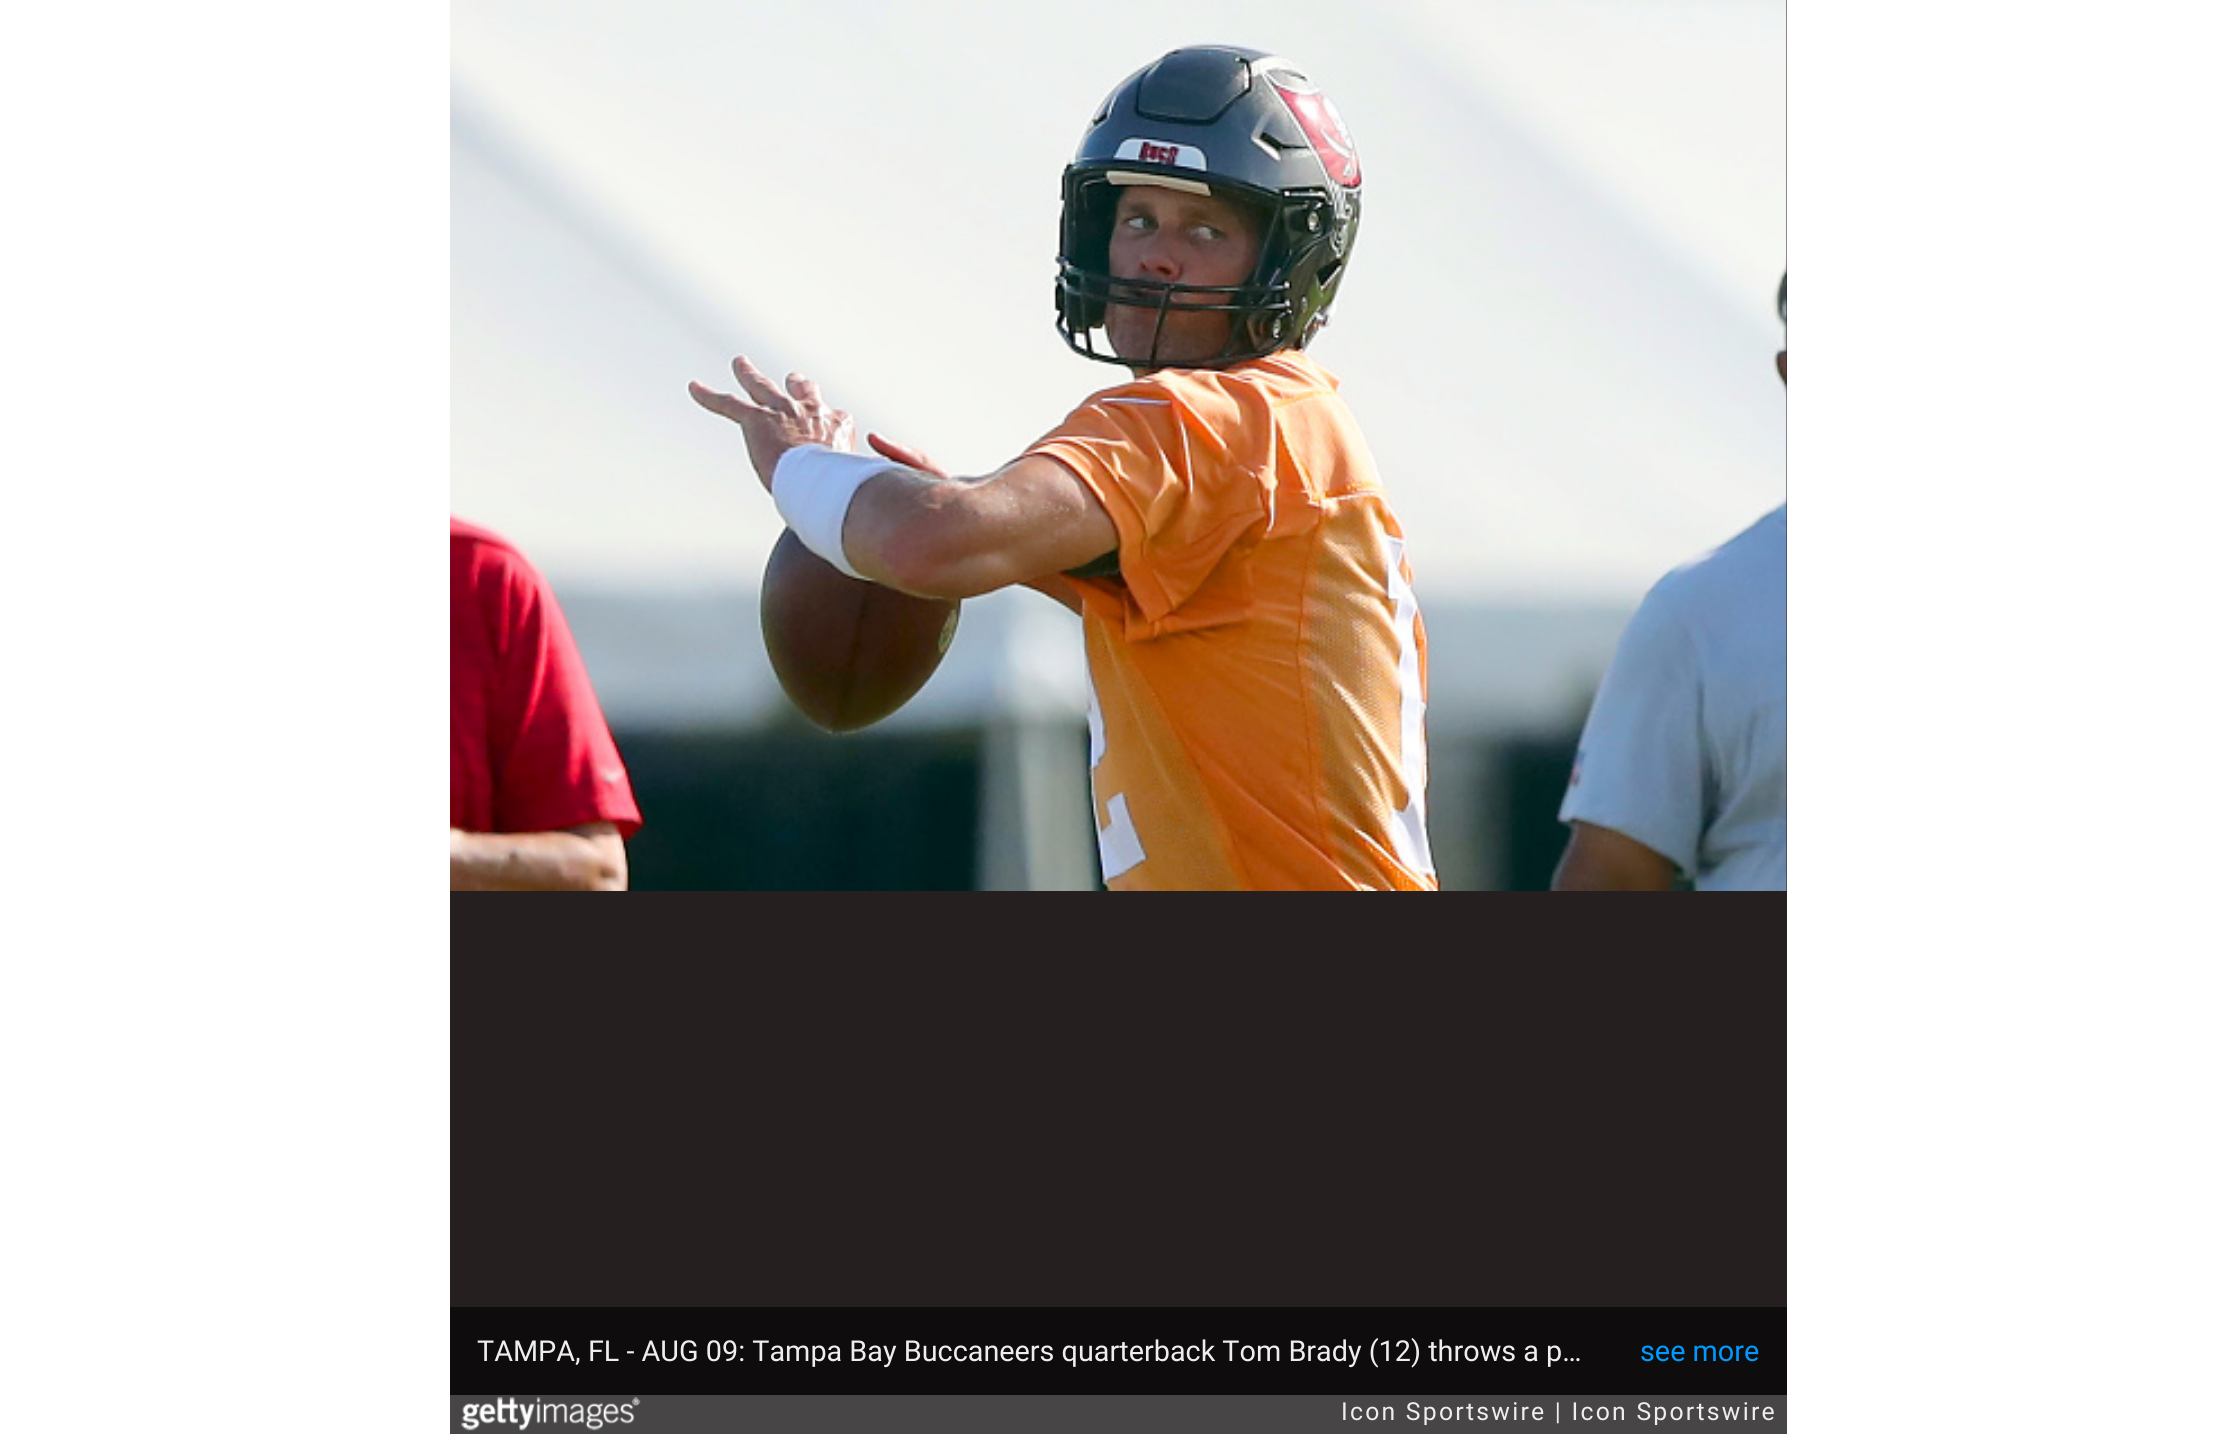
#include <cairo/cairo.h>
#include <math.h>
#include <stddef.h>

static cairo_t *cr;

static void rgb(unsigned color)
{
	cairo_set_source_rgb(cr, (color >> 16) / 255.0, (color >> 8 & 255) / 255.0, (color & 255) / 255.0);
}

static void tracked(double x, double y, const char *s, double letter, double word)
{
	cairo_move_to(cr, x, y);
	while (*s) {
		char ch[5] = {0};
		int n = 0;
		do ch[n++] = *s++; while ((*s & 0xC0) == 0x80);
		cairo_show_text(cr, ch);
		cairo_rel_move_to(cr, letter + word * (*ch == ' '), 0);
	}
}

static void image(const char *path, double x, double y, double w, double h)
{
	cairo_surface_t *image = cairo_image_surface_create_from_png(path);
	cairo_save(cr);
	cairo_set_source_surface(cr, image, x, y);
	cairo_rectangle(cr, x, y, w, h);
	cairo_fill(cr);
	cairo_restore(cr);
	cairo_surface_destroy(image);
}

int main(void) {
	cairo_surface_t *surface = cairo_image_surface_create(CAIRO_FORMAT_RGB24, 2235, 1434);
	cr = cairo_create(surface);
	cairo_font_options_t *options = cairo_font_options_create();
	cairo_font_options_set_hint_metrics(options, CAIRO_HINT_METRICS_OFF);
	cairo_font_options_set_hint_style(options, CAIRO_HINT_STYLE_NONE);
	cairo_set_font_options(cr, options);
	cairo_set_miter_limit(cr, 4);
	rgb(0xffffff);
	cairo_paint(cr);
	rgb(0x251f20);
	cairo_rectangle(cr, 450, 0, 1337, 1307);
	cairo_fill(cr);
	image("img/1.png", 450, 0, 1337, 891);
	rgb(0x0f0c0d);
	cairo_rectangle(cr, 450, 1307, 1337, 88);
	cairo_fill(cr);
	rgb(0x474545);
	cairo_rectangle(cr, 450, 1395, 1337, 39);
	cairo_fill(cr);
	image("img/2.png", 461, 1397, 180, 34);
	cairo_select_font_face(cr, "Roboto", CAIRO_FONT_SLANT_NORMAL, CAIRO_FONT_WEIGHT_NORMAL);
	cairo_set_font_size(cr, 28.8);
	rgb(0xeeeeee);
	cairo_move_to(cr, 477, 1361);
	cairo_show_text(cr, "TAMPA, FL - AUG 09: Tampa Bay Buccaneers quarterback Tom Brady (12) throws a p…");
	rgb(0x0099ff);
	cairo_move_to(cr, 1640, 1361);
	cairo_show_text(cr, "see more");
	cairo_set_font_size(cr, 24.75);
	rgb(0xeeeeee);
	tracked(1341, 1420, "Icon Sportswire | Icon Sportswire", 2.25, 0);
	cairo_surface_write_to_png(surface, "page.png");
	cairo_font_options_destroy(options);
	cairo_destroy(cr);
	cairo_surface_destroy(surface);
	return 0;
}
